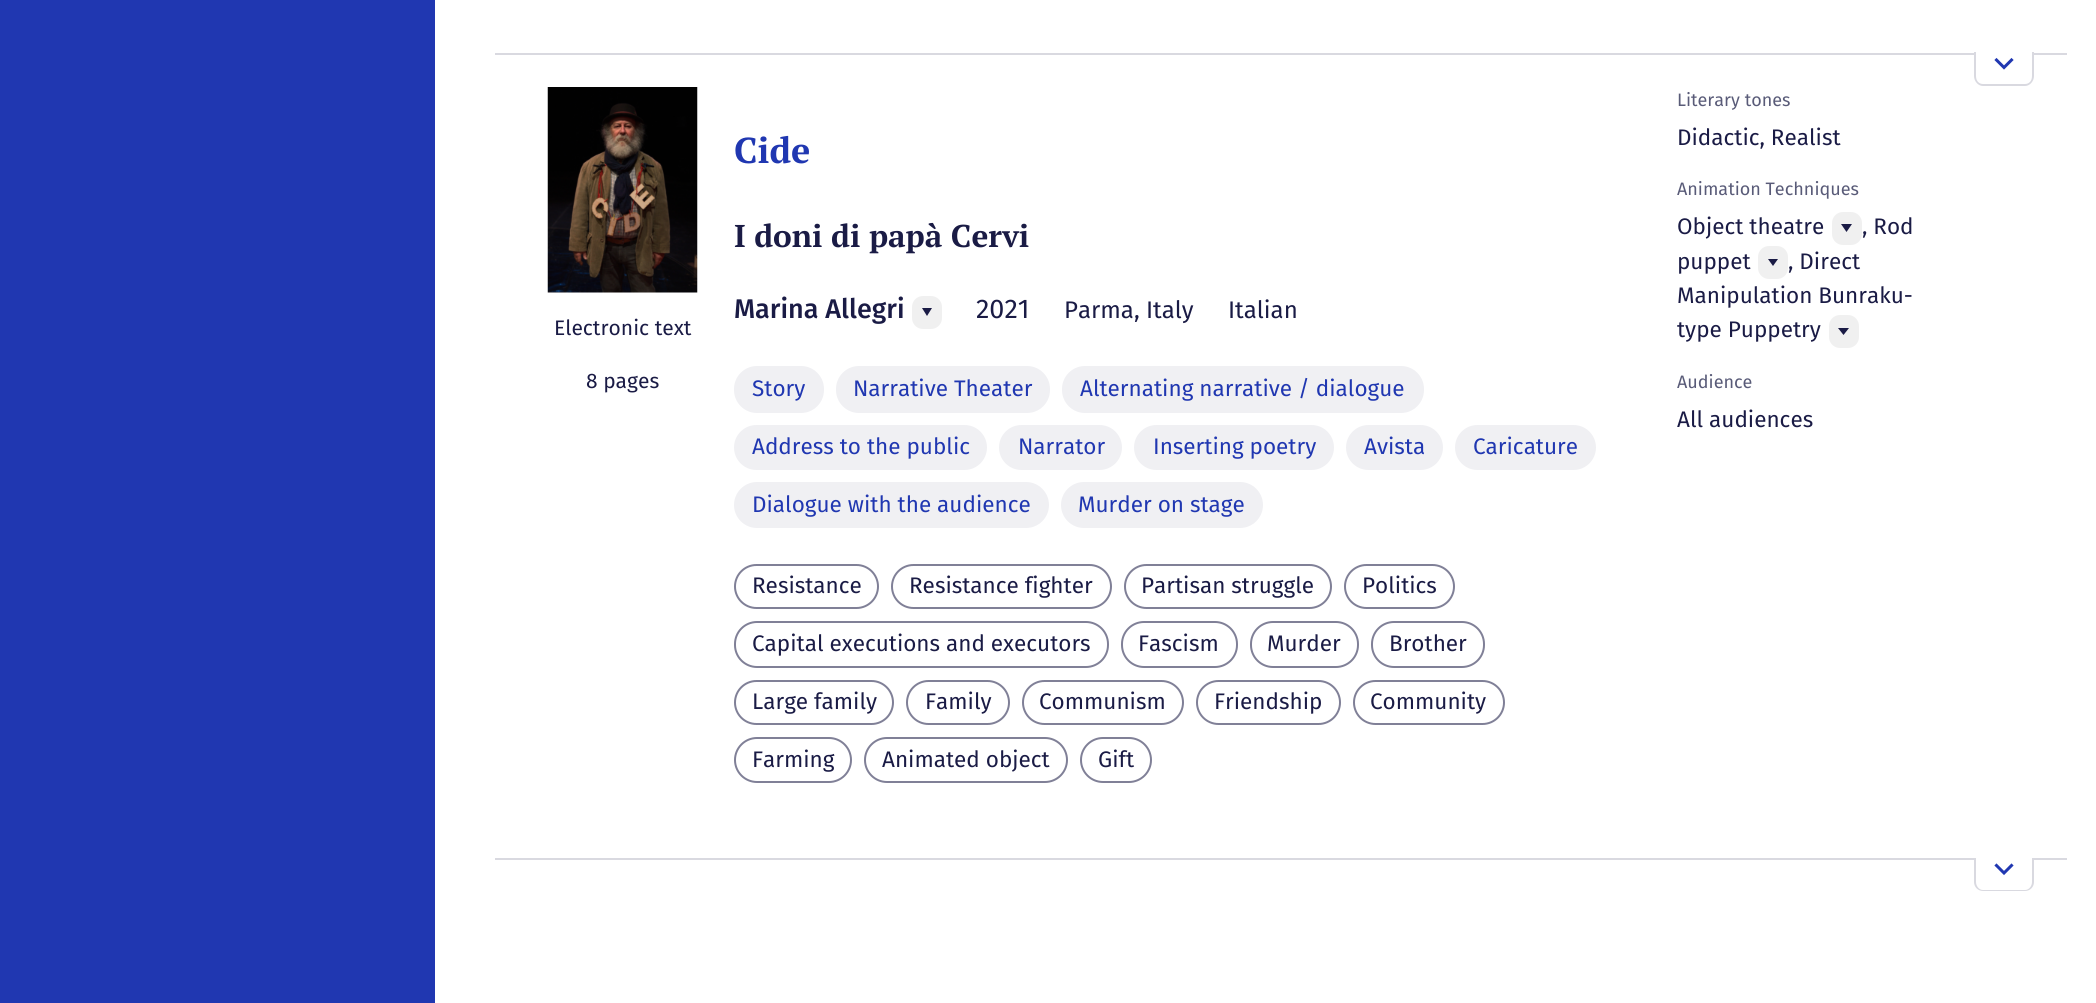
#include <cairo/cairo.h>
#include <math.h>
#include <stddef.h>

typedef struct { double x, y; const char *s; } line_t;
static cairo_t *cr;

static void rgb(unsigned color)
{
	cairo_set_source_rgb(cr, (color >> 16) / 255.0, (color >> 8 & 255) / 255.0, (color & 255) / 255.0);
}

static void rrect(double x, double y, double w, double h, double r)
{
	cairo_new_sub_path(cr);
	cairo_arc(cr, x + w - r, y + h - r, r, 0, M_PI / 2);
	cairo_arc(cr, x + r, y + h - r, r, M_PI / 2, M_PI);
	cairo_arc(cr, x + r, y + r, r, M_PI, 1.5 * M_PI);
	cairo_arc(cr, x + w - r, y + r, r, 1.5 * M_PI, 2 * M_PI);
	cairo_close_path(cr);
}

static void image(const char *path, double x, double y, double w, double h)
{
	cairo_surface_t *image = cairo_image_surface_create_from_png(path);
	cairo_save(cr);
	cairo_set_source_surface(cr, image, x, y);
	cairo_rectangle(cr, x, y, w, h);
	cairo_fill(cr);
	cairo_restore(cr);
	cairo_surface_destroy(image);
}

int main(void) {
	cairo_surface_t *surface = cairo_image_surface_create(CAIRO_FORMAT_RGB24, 2096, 1003);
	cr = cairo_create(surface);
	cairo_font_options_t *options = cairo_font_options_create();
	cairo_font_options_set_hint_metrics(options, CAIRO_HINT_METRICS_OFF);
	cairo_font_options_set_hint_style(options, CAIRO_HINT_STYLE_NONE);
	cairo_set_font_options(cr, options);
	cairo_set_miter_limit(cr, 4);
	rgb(0xffffff);
	cairo_paint(cr);
	rgb(0x2037b1);
	cairo_rectangle(cr, 0, 0, 435, 1003);
	cairo_fill(cr);
	rgb(0xd9d9e0);
	cairo_rectangle(cr, 495, 53, 1572, 2);
	cairo_fill(cr);
	rgb(0xffffff);
	cairo_new_path(cr);
	cairo_move_to(cr, 1974, 53);
	cairo_line_to(cr, 2034, 53);
	cairo_line_to(cr, 2034, 77);
	cairo_curve_to(cr, 2034, 82, 2030, 86, 2025, 86);
	cairo_line_to(cr, 1983, 86);
	cairo_curve_to(cr, 1978, 86, 1974, 82, 1974, 77);
	cairo_close_path(cr);
	cairo_fill(cr);
	rgb(0xd9d9e0);
	cairo_set_fill_rule(cr, CAIRO_FILL_RULE_EVEN_ODD);
	cairo_new_path(cr);
	cairo_move_to(cr, 1974, 52);
	cairo_line_to(cr, 2034, 52);
	cairo_line_to(cr, 2034, 76);
	cairo_curve_to(cr, 2034, 81, 2030, 86, 2025, 86);
	cairo_line_to(cr, 1983, 86);
	cairo_curve_to(cr, 1978, 86, 1974, 81, 1974, 76);
	cairo_close_path(cr);
	cairo_move_to(cr, 1976, 52);
	cairo_line_to(cr, 2032, 52);
	cairo_line_to(cr, 2032, 76);
	cairo_curve_to(cr, 2032, 81, 2029, 84, 2025, 84);
	cairo_line_to(cr, 1983, 84);
	cairo_curve_to(cr, 1979, 84, 1976, 81, 1976, 76);
	cairo_close_path(cr);
	cairo_fill(cr);
	cairo_new_path(cr);
	cairo_move_to(cr, 1996.5, 60);
	cairo_line_to(cr, 2004, 67.5);
	cairo_line_to(cr, 2011.5, 60);
	rgb(0x2037b1);
	cairo_set_line_width(cr, 3);
	cairo_set_line_cap(cr, CAIRO_LINE_CAP_SQUARE);
	cairo_stroke(cr);
	rgb(0xd9d9e0);
	cairo_rectangle(cr, 495, 858, 1572, 2);
	cairo_fill(cr);
	image("img/1.png", 547, 87, 151, 206);
	rgb(0xf0f0f0);
	rrect(912, 296, 30, 33, 11);
	cairo_fill(cr);
	rgb(0x1a1b45);
	cairo_set_fill_rule(cr, CAIRO_FILL_RULE_WINDING);
	cairo_new_path(cr);
	cairo_move_to(cr, 927, 316);
	cairo_line_to(cr, 922, 308);
	cairo_line_to(cr, 932, 308);
	cairo_close_path(cr);
	cairo_fill(cr);
	rgb(0xf0f0f3);
	rrect(734, 366, 90, 47, 23);
	cairo_fill(cr);
	rrect(836, 366, 214, 47, 23);
	cairo_fill(cr);
	rrect(1062, 366, 362, 47, 23);
	cairo_fill(cr);
	rrect(734, 425, 253, 45, 22.5);
	cairo_fill(cr);
	rrect(999, 425, 123, 45, 22.5);
	cairo_fill(cr);
	rrect(1134, 425, 200, 45, 22.5);
	cairo_fill(cr);
	rrect(1346, 425, 97, 45, 22.5);
	cairo_fill(cr);
	rrect(1455, 425, 141, 45, 22.5);
	cairo_fill(cr);
	rrect(734, 482, 315, 46, 23);
	cairo_fill(cr);
	rrect(1061, 482, 202, 46, 23);
	cairo_fill(cr);
	rrect(735, 565, 143, 43, 21.5);
	rgb(0x808097);
	cairo_set_line_width(cr, 2);
	cairo_set_line_cap(cr, CAIRO_LINE_CAP_BUTT);
	cairo_stroke(cr);
	rrect(892, 565, 219, 43, 21.5);
	cairo_stroke(cr);
	rrect(1125, 565, 206, 43, 21.5);
	cairo_stroke(cr);
	rrect(1345, 565, 109, 43, 21.5);
	cairo_stroke(cr);
	rrect(735, 622, 373, 45, 22);
	cairo_stroke(cr);
	rrect(1122, 622, 115, 45, 22);
	cairo_stroke(cr);
	rrect(1251, 622, 107, 45, 22);
	cairo_stroke(cr);
	rrect(1372, 622, 112, 45, 22);
	cairo_stroke(cr);
	rrect(735, 681, 158, 43, 21.5);
	cairo_stroke(cr);
	rrect(907, 681, 102, 43, 21.5);
	cairo_stroke(cr);
	rrect(1023, 681, 160, 43, 21.5);
	cairo_stroke(cr);
	rrect(1197, 681, 143, 43, 21.5);
	cairo_stroke(cr);
	rrect(1354, 681, 150, 43, 21.5);
	cairo_stroke(cr);
	rrect(735, 738, 116, 44, 22);
	cairo_stroke(cr);
	rrect(865, 738, 202, 44, 22);
	cairo_stroke(cr);
	rrect(1081, 738, 70, 44, 22);
	cairo_stroke(cr);
	rgb(0xf0f0f0);
	rrect(1832, 212, 30, 33, 11);
	cairo_fill(cr);
	rgb(0x1a1b45);
	cairo_new_path(cr);
	cairo_move_to(cr, 1846.5, 232);
	cairo_line_to(cr, 1841, 224);
	cairo_line_to(cr, 1852, 224);
	cairo_close_path(cr);
	cairo_fill(cr);
	rgb(0xf0f0f0);
	rrect(1758, 246, 30, 33, 11);
	cairo_fill(cr);
	rgb(0x1a1b45);
	cairo_new_path(cr);
	cairo_move_to(cr, 1773, 266);
	cairo_line_to(cr, 1768, 259);
	cairo_line_to(cr, 1778, 259);
	cairo_close_path(cr);
	cairo_fill(cr);
	rgb(0xf0f0f0);
	rrect(1829, 315, 30, 33, 11);
	cairo_fill(cr);
	rgb(0x1a1b45);
	cairo_new_path(cr);
	cairo_move_to(cr, 1843.5, 335);
	cairo_line_to(cr, 1838, 328);
	cairo_line_to(cr, 1849, 328);
	cairo_close_path(cr);
	cairo_fill(cr);
	rgb(0xffffff);
	cairo_new_path(cr);
	cairo_move_to(cr, 1974, 858);
	cairo_line_to(cr, 2034, 858);
	cairo_line_to(cr, 2034, 882);
	cairo_curve_to(cr, 2034, 887, 2030, 891, 2025, 891);
	cairo_line_to(cr, 1983, 891);
	cairo_curve_to(cr, 1978, 891, 1974, 887, 1974, 882);
	cairo_close_path(cr);
	cairo_fill(cr);
	rgb(0xd9d9e0);
	cairo_set_fill_rule(cr, CAIRO_FILL_RULE_EVEN_ODD);
	cairo_new_path(cr);
	cairo_move_to(cr, 1974, 858);
	cairo_line_to(cr, 2034, 858);
	cairo_line_to(cr, 2034, 882);
	cairo_curve_to(cr, 2034, 887, 2030, 891, 2025, 891);
	cairo_line_to(cr, 1983, 891);
	cairo_curve_to(cr, 1978, 891, 1974, 887, 1974, 882);
	cairo_close_path(cr);
	cairo_move_to(cr, 1976, 858);
	cairo_line_to(cr, 2032, 858);
	cairo_line_to(cr, 2032, 882);
	cairo_curve_to(cr, 2032, 886, 2029, 890, 2025, 890);
	cairo_line_to(cr, 1983, 890);
	cairo_curve_to(cr, 1979, 890, 1976, 886, 1976, 882);
	cairo_close_path(cr);
	cairo_fill(cr);
	cairo_new_path(cr);
	cairo_move_to(cr, 1996.5, 865.5);
	cairo_line_to(cr, 2004, 873);
	cairo_line_to(cr, 2011.5, 865.5);
	rgb(0x2037b1);
	cairo_set_line_width(cr, 3);
	cairo_set_line_cap(cr, CAIRO_LINE_CAP_SQUARE);
	cairo_stroke(cr);
	cairo_select_font_face(cr, "Fira Sans", CAIRO_FONT_SLANT_NORMAL, CAIRO_FONT_WEIGHT_NORMAL);
	cairo_set_font_size(cr, 21);
	rgb(0x1a1b45);
	cairo_move_to(cr, 554, 335);
	cairo_show_text(cr, "Electronic text");
	cairo_move_to(cr, 586, 388);
	cairo_show_text(cr, "8 pages");
	cairo_select_font_face(cr, "PT Serif", CAIRO_FONT_SLANT_NORMAL, CAIRO_FONT_WEIGHT_BOLD);
	cairo_set_font_size(cr, 36);
	rgb(0x2037b1);
	cairo_move_to(cr, 734, 163);
	cairo_show_text(cr, "Cide");
	cairo_set_font_size(cr, 31.5);
	rgb(0x1a1b45);
	cairo_move_to(cr, 734, 247);
	cairo_show_text(cr, "I doni di papà Cervi");
	cairo_select_font_face(cr, "Fira Sans Medium", CAIRO_FONT_SLANT_NORMAL, CAIRO_FONT_WEIGHT_NORMAL);
	cairo_set_font_size(cr, 27);
	cairo_move_to(cr, 734, 318);
	cairo_show_text(cr, "Marina Allegri");
	cairo_select_font_face(cr, "Fira Sans", CAIRO_FONT_SLANT_NORMAL, CAIRO_FONT_WEIGHT_NORMAL);
	cairo_move_to(cr, 976, 318);
	cairo_show_text(cr, "2021");
	cairo_set_font_size(cr, 24);
	cairo_move_to(cr, 1064, 318);
	cairo_show_text(cr, "Parma, Italy");
	cairo_move_to(cr, 1228, 318);
	cairo_show_text(cr, "Italian");
	cairo_set_font_size(cr, 22.5);
	rgb(0x2037b1);
	{
		static const line_t items[] = {
			{752, 396, "Story"},
			{853, 396, "Narrative Theater"},
			{1080, 396, "Alternating narrative / dialogue"},
			{752, 454, "Address to the public"},
			{1018, 454, "Narrator"},
			{1153, 454, "Inserting poetry"},
			{1364, 454, "Avista"},
			{1473, 454, "Caricature"},
			{752, 512, "Dialogue with the audience"},
			{1078, 512, "Murder on stage"},
		};
		for (size_t i = 0; i < sizeof items / sizeof *items; i++) {
			cairo_move_to(cr, items[i].x, items[i].y);
			cairo_show_text(cr, items[i].s);
		}
	}
	rgb(0x1a1b45);
	{
		static const line_t items[] = {
			{752, 593, "Resistance"},
			{909, 593, "Resistance fighter"},
			{1141, 593, "Partisan struggle"},
			{1362, 593, "Politics"},
			{752, 651, "Capital executions and executors"},
			{1138, 651, "Fascism"},
			{1267, 651, "Murder"},
			{1389, 651, "Brother"},
			{752, 709, "Large family"},
			{925, 709, "Family"},
			{1039, 709, "Communism"},
			{1214, 709, "Friendship"},
			{1370, 709, "Community"},
			{752, 767, "Farming"},
			{882, 767, "Animated object"},
			{1098, 767, "Gift"},
		};
		for (size_t i = 0; i < sizeof items / sizeof *items; i++) {
			cairo_move_to(cr, items[i].x, items[i].y);
			cairo_show_text(cr, items[i].s);
		}
	}
	cairo_set_font_size(cr, 18);
	rgb(0x595b78);
	cairo_move_to(cr, 1677, 106);
	cairo_show_text(cr, "Literary tones");
	cairo_set_font_size(cr, 22.5);
	rgb(0x1a1b45);
	cairo_move_to(cr, 1677, 145);
	cairo_show_text(cr, "Didactic, Realist");
	cairo_set_font_size(cr, 18);
	rgb(0x595b78);
	cairo_move_to(cr, 1677, 195);
	cairo_show_text(cr, "Animation Techniques");
	cairo_set_font_size(cr, 22.5);
	rgb(0x1a1b45);
	{
		static const line_t items[] = {
			{1677, 234, "Object theatre"},
			{1862, 234, ", Rod"},
			{1677, 269, "puppet"},
			{1788, 269, ", Direct"},
			{1677, 303, "Manipulation Bunraku-"},
			{1677, 337, "type Puppetry"},
		};
		for (size_t i = 0; i < sizeof items / sizeof *items; i++) {
			cairo_move_to(cr, items[i].x, items[i].y);
			cairo_show_text(cr, items[i].s);
		}
	}
	cairo_set_font_size(cr, 18);
	rgb(0x595b78);
	cairo_move_to(cr, 1677, 388);
	cairo_show_text(cr, "Audience");
	cairo_set_font_size(cr, 22.5);
	rgb(0x1a1b45);
	cairo_move_to(cr, 1677, 427);
	cairo_show_text(cr, "All audiences");
	cairo_surface_write_to_png(surface, "page.png");
	cairo_font_options_destroy(options);
	cairo_destroy(cr);
	cairo_surface_destroy(surface);
	return 0;
}
